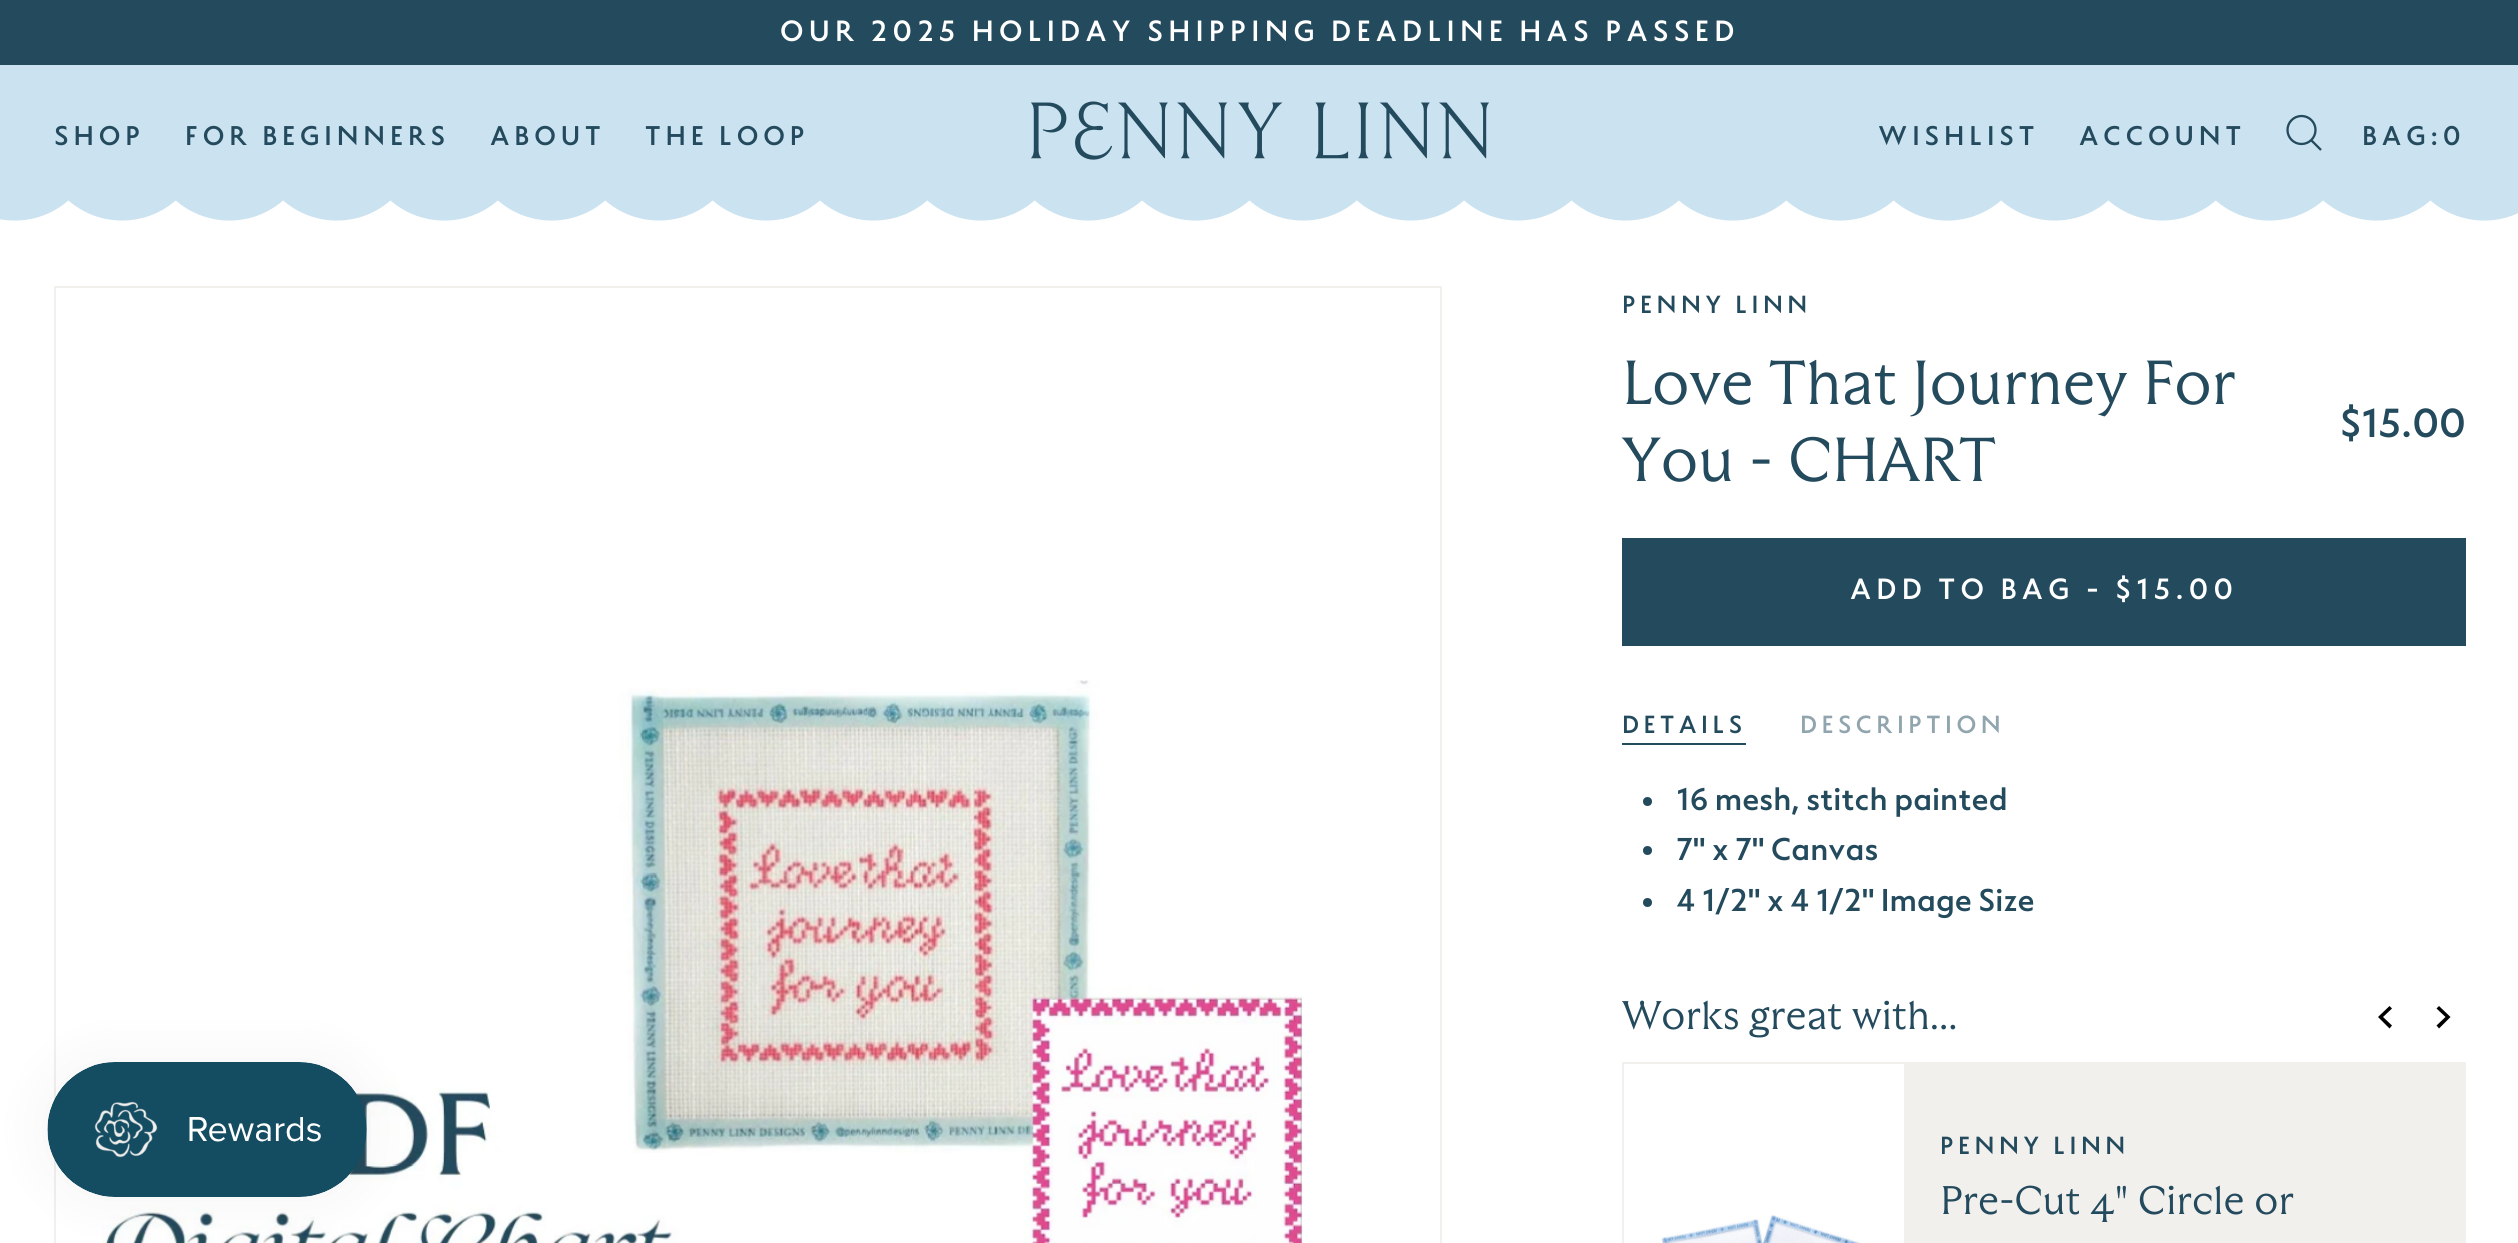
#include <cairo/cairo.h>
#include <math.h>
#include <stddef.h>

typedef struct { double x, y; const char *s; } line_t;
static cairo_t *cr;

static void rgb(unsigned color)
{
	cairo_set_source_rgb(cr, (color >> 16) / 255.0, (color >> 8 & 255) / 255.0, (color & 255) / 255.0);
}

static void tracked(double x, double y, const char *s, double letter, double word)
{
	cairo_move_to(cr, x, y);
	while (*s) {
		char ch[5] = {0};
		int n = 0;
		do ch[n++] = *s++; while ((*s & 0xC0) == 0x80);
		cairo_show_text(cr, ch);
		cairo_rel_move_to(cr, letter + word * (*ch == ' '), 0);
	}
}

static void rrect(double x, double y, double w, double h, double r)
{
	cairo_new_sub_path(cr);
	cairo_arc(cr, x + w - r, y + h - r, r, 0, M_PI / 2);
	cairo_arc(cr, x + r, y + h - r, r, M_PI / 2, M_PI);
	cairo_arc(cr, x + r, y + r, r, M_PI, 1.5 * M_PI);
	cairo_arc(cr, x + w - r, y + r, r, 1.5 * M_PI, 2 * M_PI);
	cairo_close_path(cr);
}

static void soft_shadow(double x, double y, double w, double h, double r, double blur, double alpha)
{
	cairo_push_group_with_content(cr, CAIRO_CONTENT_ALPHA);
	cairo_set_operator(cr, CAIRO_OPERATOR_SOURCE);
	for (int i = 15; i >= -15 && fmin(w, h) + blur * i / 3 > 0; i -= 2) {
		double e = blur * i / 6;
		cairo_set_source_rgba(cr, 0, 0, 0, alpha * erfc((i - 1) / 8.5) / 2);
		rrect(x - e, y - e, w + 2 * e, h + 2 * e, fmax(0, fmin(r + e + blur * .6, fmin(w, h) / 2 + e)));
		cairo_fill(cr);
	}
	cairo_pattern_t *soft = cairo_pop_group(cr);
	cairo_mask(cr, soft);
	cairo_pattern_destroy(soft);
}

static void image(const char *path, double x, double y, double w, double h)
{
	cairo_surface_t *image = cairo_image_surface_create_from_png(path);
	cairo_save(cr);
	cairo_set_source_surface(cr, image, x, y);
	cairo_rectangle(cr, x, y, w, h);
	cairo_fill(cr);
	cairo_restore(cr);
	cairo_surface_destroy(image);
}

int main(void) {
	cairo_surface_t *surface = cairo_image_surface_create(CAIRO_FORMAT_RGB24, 2518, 1243);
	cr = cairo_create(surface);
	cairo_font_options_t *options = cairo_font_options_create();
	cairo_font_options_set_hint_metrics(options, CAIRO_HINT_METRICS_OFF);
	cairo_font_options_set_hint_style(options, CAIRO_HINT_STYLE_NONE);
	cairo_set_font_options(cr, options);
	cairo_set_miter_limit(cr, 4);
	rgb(0xffffff);
	cairo_paint(cr);
	rgb(0xcbe2f0);
	cairo_rectangle(cr, 0, 65, 2518, 120);
	cairo_fill(cr);
	rgb(0x234a5d);
	cairo_rectangle(cr, 0, 0, 2518, 65);
	cairo_fill(cr);
	image("img/1.png", 1031, 101, 458, 59);
	cairo_arc(cr, 2301.5, 130, 14, 0, 2 * M_PI);
	cairo_set_line_width(cr, 2.3);
	cairo_stroke(cr);
	cairo_new_path(cr);
	cairo_move_to(cr, 2311, 140);
	cairo_line_to(cr, 2321, 150);
	cairo_stroke(cr);
	image("img/2.png", 0, 185, 2518, 36);
	cairo_rectangle(cr, 55, 287, 1386, 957);
	rgb(0xf2f0ed);
	cairo_set_line_width(cr, 2);
	cairo_stroke(cr);
	image("img/4.png", 102, 680, 1201, 563);
	rgb(0x000000);
	soft_shadow(47, 1062, 320, 135, 67.5, 28, 0.05);
	image("img/3.png", 47, 1062, 320, 135);
	rgb(0x234a5d);
	cairo_rectangle(cr, 1622, 538, 844, 108);
	cairo_fill(cr);
	cairo_rectangle(cr, 1622, 743, 124, 2);
	cairo_fill(cr);
	cairo_arc(cr, 1647.5, 801.5, 4.5, 0, 2 * M_PI);
	cairo_fill(cr);
	cairo_arc(cr, 1647.5, 850.5, 4.5, 0, 2 * M_PI);
	cairo_fill(cr);
	cairo_arc(cr, 1647.5, 902.5, 4.5, 0, 2 * M_PI);
	cairo_fill(cr);
	rgb(0x000000);
	cairo_new_path(cr);
	cairo_move_to(cr, 2389.5, 1028.5);
	cairo_line_to(cr, 2378, 1017);
	cairo_line_to(cr, 2389.5, 1006);
	cairo_line_to(cr, 2392, 1008.5);
	cairo_line_to(cr, 2383, 1017);
	cairo_line_to(cr, 2392, 1025.5);
	cairo_close_path(cr);
	cairo_fill(cr);
	cairo_new_path(cr);
	cairo_move_to(cr, 2439, 1028.5);
	cairo_line_to(cr, 2450.5, 1017);
	cairo_line_to(cr, 2439, 1006);
	cairo_line_to(cr, 2436.5, 1008.5);
	cairo_line_to(cr, 2445.5, 1017);
	cairo_line_to(cr, 2436.5, 1025.5);
	cairo_close_path(cr);
	cairo_fill(cr);
	cairo_rectangle(cr, 1623, 1063, 842, 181);
	rgb(0xf2f0ed);
	cairo_stroke(cr);
	cairo_rectangle(cr, 1904, 1064, 560, 179);
	cairo_fill(cr);
	image("img/5.png", 1661, 1215, 205, 28);
	cairo_select_font_face(cr, "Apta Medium", CAIRO_FONT_SLANT_NORMAL, CAIRO_FONT_WEIGHT_NORMAL);
	cairo_set_font_size(cr, 29.25);
	rgb(0xffffff);
	tracked(780, 41, "OUR 2025 HOLIDAY SHIPPING DEADLINE HAS PASSED", 5.25, 0);
	cairo_set_font_size(cr, 27);
	rgb(0x234a5d);
	{
		static const line_t items[] = {
			{54, 145, "SHOP"},
			{185, 145, "FOR BEGINNERS"},
			{490, 145, "ABOUT"},
			{645, 145, "THE LOOP"},
			{1878, 145, "WISHLIST"},
			{2079, 145, "ACCOUNT"},
			{2362, 145, "BAG:0"},
		};
		for (size_t i = 0; i < sizeof items / sizeof *items; i++) {
			tracked(items[i].x, items[i].y, items[i].s, 4.9, 0);
		}
	}
	cairo_set_font_size(cr, 24.75);
	tracked(1622, 313, "PENNY LINN", 4.5, 0);
	cairo_select_font_face(cr, "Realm", CAIRO_FONT_SLANT_NORMAL, CAIRO_FONT_WEIGHT_NORMAL);
	cairo_set_font_size(cr, 63);
	cairo_move_to(cr, 1622, 404);
	cairo_show_text(cr, "Love That Journey For");
	cairo_move_to(cr, 1622, 481);
	cairo_show_text(cr, "You - CHART");
	cairo_select_font_face(cr, "Apta Medium", CAIRO_FONT_SLANT_NORMAL, CAIRO_FONT_WEIGHT_NORMAL);
	cairo_set_font_size(cr, 40.5);
	cairo_move_to(cr, 2340, 437);
	cairo_show_text(cr, "$15.00");
	cairo_set_font_size(cr, 29.25);
	rgb(0xffffff);
	tracked(1850, 599, "ADD TO BAG - $15.00", 5.25, 0);
	cairo_set_font_size(cr, 24.75);
	rgb(0x234a5d);
	tracked(1622, 733, "DETAILS", 4.5, 0);
	rgb(0x91a5ae);
	tracked(1800, 733, "DESCRIPTION", 4.5, 0);
	cairo_set_font_size(cr, 31.5);
	rgb(0x234a5d);
	{
		static const line_t items[] = {
			{1676, 810, "16 mesh, stitch painted"},
			{1676, 860, "7\" x 7\" Canvas"},
			{1676, 911, "4 1/2\" x 4 1/2\" Image Size"},
		};
		for (size_t i = 0; i < sizeof items / sizeof *items; i++) {
			cairo_move_to(cr, items[i].x, items[i].y);
			cairo_show_text(cr, items[i].s);
		}
	}
	cairo_select_font_face(cr, "Realm", CAIRO_FONT_SLANT_NORMAL, CAIRO_FONT_WEIGHT_NORMAL);
	cairo_set_font_size(cr, 40.5);
	cairo_move_to(cr, 1622, 1029);
	cairo_show_text(cr, "Works great with...");
	cairo_select_font_face(cr, "Apta Medium", CAIRO_FONT_SLANT_NORMAL, CAIRO_FONT_WEIGHT_NORMAL);
	cairo_set_font_size(cr, 24.75);
	tracked(1940, 1154, "PENNY LINN", 4.5, 0);
	cairo_select_font_face(cr, "Realm", CAIRO_FONT_SLANT_NORMAL, CAIRO_FONT_WEIGHT_NORMAL);
	cairo_set_font_size(cr, 40.5);
	cairo_move_to(cr, 1940, 1214);
	cairo_show_text(cr, "Pre-Cut 4\" Circle or");
	cairo_surface_write_to_png(surface, "page.png");
	cairo_font_options_destroy(options);
	cairo_destroy(cr);
	cairo_surface_destroy(surface);
	return 0;
}
